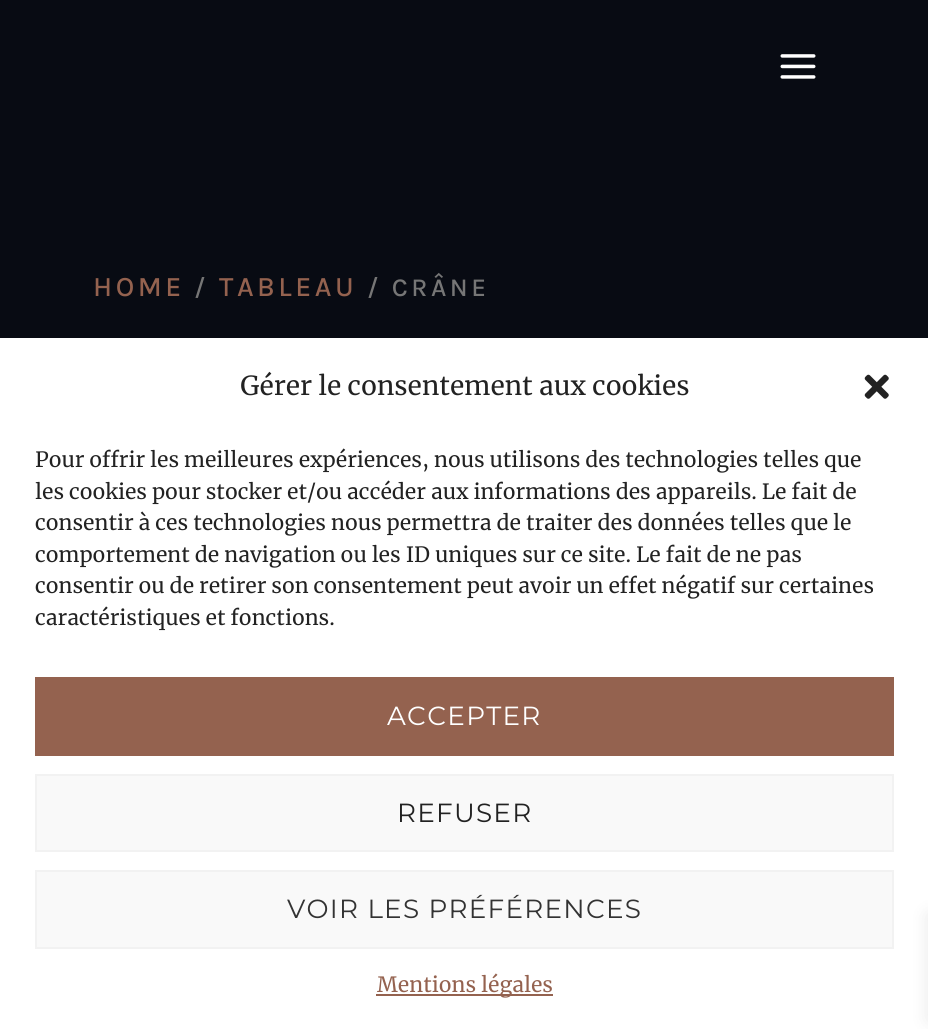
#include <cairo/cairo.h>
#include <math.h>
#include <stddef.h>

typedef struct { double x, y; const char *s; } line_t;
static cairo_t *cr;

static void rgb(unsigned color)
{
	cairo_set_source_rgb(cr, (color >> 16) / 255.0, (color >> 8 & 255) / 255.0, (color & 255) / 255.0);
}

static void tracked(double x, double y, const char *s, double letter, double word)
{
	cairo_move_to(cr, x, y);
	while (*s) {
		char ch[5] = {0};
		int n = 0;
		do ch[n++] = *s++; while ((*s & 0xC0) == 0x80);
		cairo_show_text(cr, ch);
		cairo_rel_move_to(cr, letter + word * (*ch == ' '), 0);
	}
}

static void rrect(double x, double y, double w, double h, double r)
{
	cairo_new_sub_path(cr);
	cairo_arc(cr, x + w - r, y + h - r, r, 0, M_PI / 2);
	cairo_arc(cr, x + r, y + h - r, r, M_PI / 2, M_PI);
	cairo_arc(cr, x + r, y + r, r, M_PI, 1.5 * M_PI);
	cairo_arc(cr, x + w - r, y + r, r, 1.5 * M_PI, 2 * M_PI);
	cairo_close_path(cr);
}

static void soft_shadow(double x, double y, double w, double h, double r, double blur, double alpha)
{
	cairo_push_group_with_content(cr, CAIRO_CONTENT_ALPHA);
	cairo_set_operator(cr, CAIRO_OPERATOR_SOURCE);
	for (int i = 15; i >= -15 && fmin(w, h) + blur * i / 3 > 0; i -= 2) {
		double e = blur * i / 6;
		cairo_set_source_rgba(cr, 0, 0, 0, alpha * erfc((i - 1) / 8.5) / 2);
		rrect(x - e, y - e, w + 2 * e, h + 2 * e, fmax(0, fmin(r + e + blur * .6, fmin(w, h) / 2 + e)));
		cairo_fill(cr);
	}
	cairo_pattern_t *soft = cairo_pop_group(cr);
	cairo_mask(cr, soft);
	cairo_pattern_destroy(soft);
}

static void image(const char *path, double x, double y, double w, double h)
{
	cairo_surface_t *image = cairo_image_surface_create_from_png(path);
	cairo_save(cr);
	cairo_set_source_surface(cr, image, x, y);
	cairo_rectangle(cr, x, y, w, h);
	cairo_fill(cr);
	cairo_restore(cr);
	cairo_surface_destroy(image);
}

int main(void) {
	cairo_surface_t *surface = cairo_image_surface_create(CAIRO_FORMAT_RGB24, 928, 1029);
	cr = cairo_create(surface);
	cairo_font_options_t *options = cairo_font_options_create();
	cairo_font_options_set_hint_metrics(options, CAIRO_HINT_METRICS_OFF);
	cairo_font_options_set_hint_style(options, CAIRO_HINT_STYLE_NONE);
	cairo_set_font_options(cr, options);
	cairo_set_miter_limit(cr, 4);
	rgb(0x080b13);
	cairo_paint(cr);
	image("img/1.png", 780, 54, 36, 25);
	rgb(0xffffff);
	cairo_rectangle(cr, 0, 338, 928, 691);
	cairo_fill(cr);
	image("img/2.png", 864, 374, 25, 25);
	rgb(0x94624f);
	cairo_rectangle(cr, 35, 677, 859, 79);
	cairo_fill(cr);
	rgb(0xf9f9f9);
	cairo_rectangle(cr, 36, 775, 857, 76);
	cairo_fill_preserve(cr);
	rgb(0xf2f2f2);
	cairo_stroke(cr);
	rgb(0xf9f9f9);
	cairo_rectangle(cr, 36, 871, 857, 77);
	cairo_fill_preserve(cr);
	rgb(0xf2f2f2);
	cairo_stroke(cr);
	rgb(0x94624f);
	cairo_rectangle(cr, 376, 994, 177, 2);
	cairo_fill(cr);
	rgb(0x000000);
	soft_shadow(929, 915, 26, 105, 0, 9, 0.1);
	cairo_select_font_face(cr, "Karla Medium", CAIRO_FONT_SLANT_NORMAL, CAIRO_FONT_WEIGHT_NORMAL);
	cairo_set_font_size(cr, 28);
	rgb(0x94624f);
	tracked(93, 296, "HOME", 3.5, 0);
	cairo_set_font_size(cr, 25.75);
	rgb(0x767676);
	tracked(194, 296, "/", 3.5, 0);
	cairo_set_font_size(cr, 28);
	rgb(0x94624f);
	tracked(219, 296, "TABLEAU", 3.5, 0);
	cairo_set_font_size(cr, 25.75);
	rgb(0x767676);
	tracked(367, 296, "/ CRÂNE", 3.5, 0);
	cairo_select_font_face(cr, "Merriweather", CAIRO_FONT_SLANT_NORMAL, CAIRO_FONT_WEIGHT_NORMAL);
	cairo_set_font_size(cr, 26.25);
	rgb(0x222222);
	cairo_move_to(cr, 240, 395);
	cairo_show_text(cr, "Gérer le consentement aux cookies");
	cairo_set_font_size(cr, 21);
	{
		static const line_t items[] = {
			{35, 467, "Pour offrir les meilleures expériences, nous utilisons des technologies telles que"},
			{35, 499, "les cookies pour stocker et/ou accéder aux informations des appareils. Le fait de"},
			{35, 530, "consentir à ces technologies nous permettra de traiter des données telles que le"},
			{35, 562, "comportement de navigation ou les ID uniques sur ce site. Le fait de ne pas"},
			{35, 593, "consentir ou de retirer son consentement peut avoir un effet négatif sur certaines"},
			{35, 625, "caractéristiques et fonctions."},
		};
		for (size_t i = 0; i < sizeof items / sizeof *items; i++) {
			cairo_move_to(cr, items[i].x, items[i].y);
			cairo_show_text(cr, items[i].s);
		}
	}
	cairo_select_font_face(cr, "Montserrat Thin", CAIRO_FONT_SLANT_NORMAL, CAIRO_FONT_WEIGHT_NORMAL);
	cairo_set_font_size(cr, 26.25);
	rgb(0xffffff);
	tracked(387, 725, "ACCEPTER", 1.25, 0);
	rgb(0x222222);
	tracked(397, 822, "REFUSER", 1.25, 0);
	rgb(0x333333);
	tracked(287, 918, "VOIR LES PRÉFÉRENCES", 1.25, 0);
	cairo_select_font_face(cr, "Merriweather", CAIRO_FONT_SLANT_NORMAL, CAIRO_FONT_WEIGHT_NORMAL);
	cairo_set_font_size(cr, 21);
	rgb(0x94624f);
	cairo_move_to(cr, 377, 992);
	cairo_show_text(cr, "Mentions légales");
	cairo_surface_write_to_png(surface, "page.png");
	cairo_font_options_destroy(options);
	cairo_destroy(cr);
	cairo_surface_destroy(surface);
	return 0;
}
